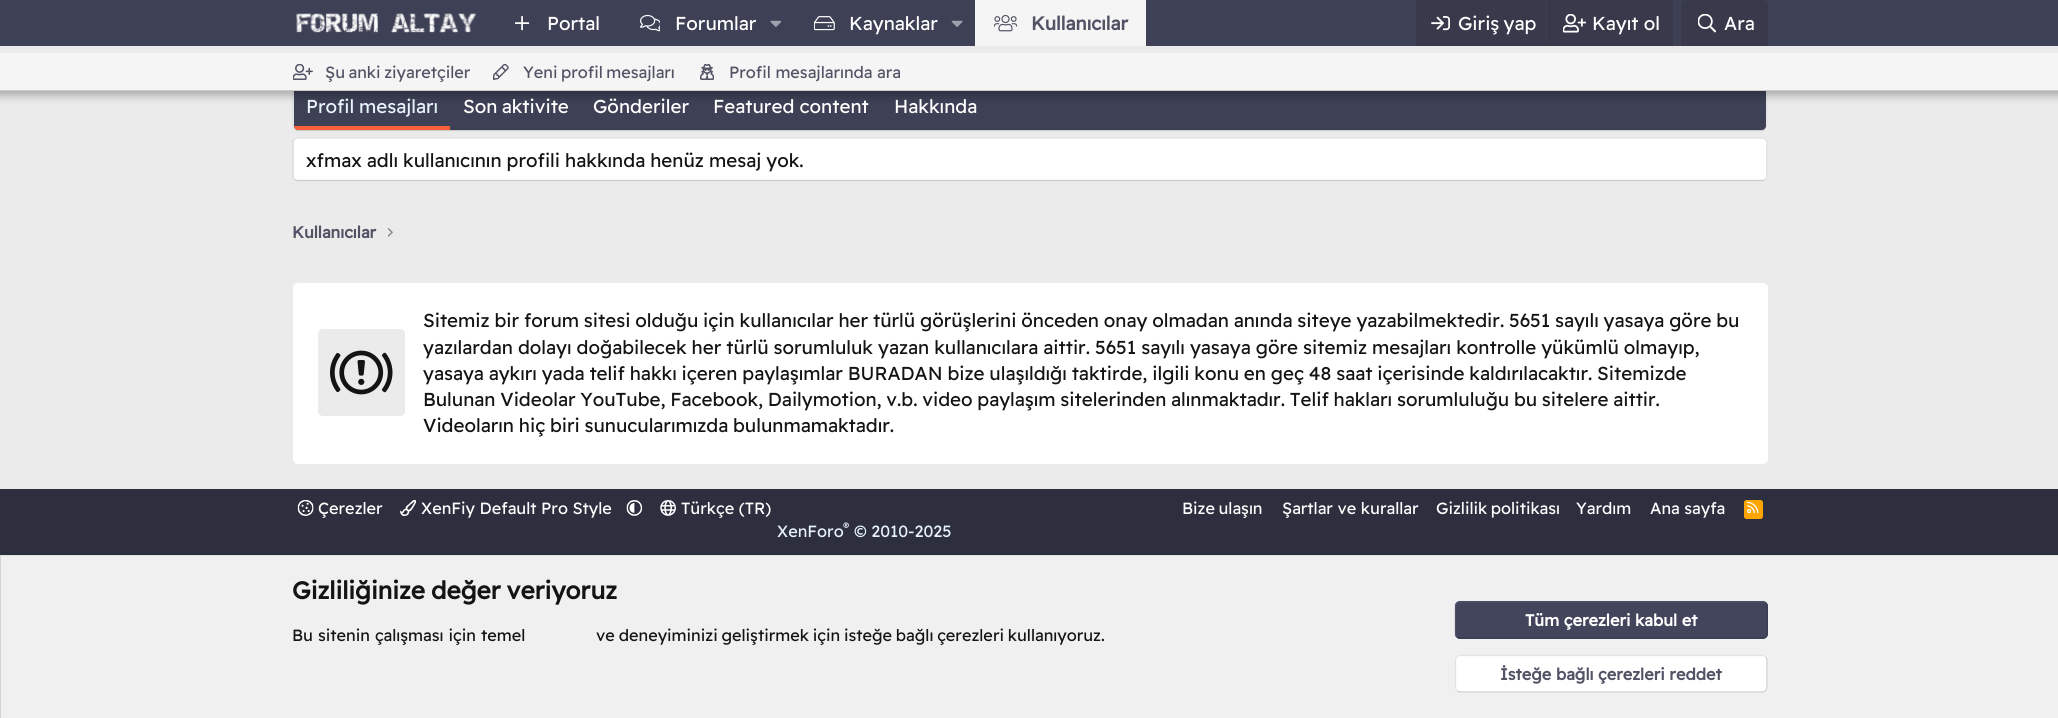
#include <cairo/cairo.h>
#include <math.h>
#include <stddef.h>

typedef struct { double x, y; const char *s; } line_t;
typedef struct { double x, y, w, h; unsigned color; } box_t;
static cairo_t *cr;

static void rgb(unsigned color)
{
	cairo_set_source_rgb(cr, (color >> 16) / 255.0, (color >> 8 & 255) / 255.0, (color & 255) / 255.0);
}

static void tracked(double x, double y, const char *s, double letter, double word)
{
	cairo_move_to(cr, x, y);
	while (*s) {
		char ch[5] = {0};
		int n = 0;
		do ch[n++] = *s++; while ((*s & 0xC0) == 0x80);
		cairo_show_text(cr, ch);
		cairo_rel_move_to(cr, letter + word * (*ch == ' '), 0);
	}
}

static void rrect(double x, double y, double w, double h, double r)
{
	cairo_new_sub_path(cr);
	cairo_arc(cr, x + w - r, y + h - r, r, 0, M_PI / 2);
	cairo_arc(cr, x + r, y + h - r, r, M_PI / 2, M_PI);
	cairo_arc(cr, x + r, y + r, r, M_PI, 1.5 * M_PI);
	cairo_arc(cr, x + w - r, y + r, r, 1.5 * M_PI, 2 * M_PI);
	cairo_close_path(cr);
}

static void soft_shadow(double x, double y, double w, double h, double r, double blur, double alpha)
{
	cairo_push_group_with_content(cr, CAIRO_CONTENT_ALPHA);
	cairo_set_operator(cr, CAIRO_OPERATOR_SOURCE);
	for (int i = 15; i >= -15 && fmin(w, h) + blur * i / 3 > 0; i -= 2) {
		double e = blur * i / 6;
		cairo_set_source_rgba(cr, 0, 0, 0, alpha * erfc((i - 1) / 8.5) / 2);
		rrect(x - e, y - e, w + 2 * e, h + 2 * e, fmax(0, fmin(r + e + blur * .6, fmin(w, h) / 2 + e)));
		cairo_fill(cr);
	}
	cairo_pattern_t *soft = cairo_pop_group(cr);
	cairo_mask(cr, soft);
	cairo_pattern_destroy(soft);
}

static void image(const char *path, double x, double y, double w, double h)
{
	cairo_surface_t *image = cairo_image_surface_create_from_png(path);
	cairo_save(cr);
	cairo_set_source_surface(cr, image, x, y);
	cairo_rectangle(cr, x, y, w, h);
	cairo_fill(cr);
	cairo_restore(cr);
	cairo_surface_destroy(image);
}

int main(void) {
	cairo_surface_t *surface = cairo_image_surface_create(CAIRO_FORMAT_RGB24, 2058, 718);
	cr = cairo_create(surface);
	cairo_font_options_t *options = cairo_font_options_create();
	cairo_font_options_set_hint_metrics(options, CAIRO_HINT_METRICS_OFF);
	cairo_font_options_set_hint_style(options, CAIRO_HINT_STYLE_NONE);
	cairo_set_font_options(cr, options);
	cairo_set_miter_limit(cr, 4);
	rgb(0xebebeb);
	cairo_paint(cr);
	rgb(0xffffff);
	rrect(293, -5, 1475, 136, 5);
	cairo_fill(cr);
	cairo_new_path(cr);
	cairo_move_to(cr, 1765.5, -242);
	cairo_line_to(cr, 1767, -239);
	cairo_line_to(cr, 1767, 126);
	cairo_line_to(cr, 1765.5, 129.5);
	rgb(0xd6d6d6);
	cairo_set_line_width(cr, 1.2);
	cairo_stroke(cr);
	cairo_new_path(cr);
	cairo_move_to(cr, 1765.5, 129.5);
	cairo_line_to(cr, 1762.5, 130.5);
	cairo_line_to(cr, 297.5, 130.5);
	cairo_line_to(cr, 294.5, 129.5);
	rgb(0xcccccc);
	cairo_stroke(cr);
	cairo_new_path(cr);
	cairo_move_to(cr, 294.5, 129.5);
	cairo_line_to(cr, 293, 126);
	cairo_line_to(cr, 293, -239);
	cairo_line_to(cr, 294.5, -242);
	rgb(0xd6d6d6);
	cairo_stroke(cr);
	rgb(0x3e4156);
	cairo_new_path(cr);
	cairo_move_to(cr, 294, 85);
	cairo_line_to(cr, 1766, 85);
	cairo_line_to(cr, 1766, 126);
	cairo_curve_to(cr, 1766, 128, 1764, 130, 1762, 130);
	cairo_line_to(cr, 298, 130);
	cairo_curve_to(cr, 296, 130, 294, 128, 294, 126);
	cairo_close_path(cr);
	cairo_fill(cr);
	rgb(0x000000);
	soft_shadow(-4, -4, 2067, 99, 0, 5, 0.3);
	rgb(0x3e4156);
	cairo_rectangle(cr, 0, 0, 2058, 46);
	cairo_fill(cr);
	image("img/1.png", 296, 13, 181, 20);
	image("img/2.png", 515, 16, 15, 15);
	image("img/3.png", 640, 14, 20, 18);
	image("img/4.png", 770, 20, 11, 7);
	image("img/5.png", 814, 16, 21, 15);
	image("img/6.png", 951, 20, 12, 7);
	rgb(0xf5f5f5);
	cairo_rectangle(cr, 975, 0, 171, 46);
	cairo_fill(cr);
	image("img/7.png", 994, 14, 24, 18);
	rgb(0x383a4c);
	cairo_rectangle(cr, 1416, 0, 257, 46);
	cairo_fill(cr);
	image("img/8.png", 1431, 16, 19, 15);
	rgb(0x333444);
	cairo_rectangle(cr, 1549, 0, 1, 46);
	cairo_fill(cr);
	image("img/9.png", 1563, 14, 23, 19);
	rgb(0x383a4c);
	cairo_new_path(cr);
	cairo_move_to(cr, 1686, 0);
	cairo_line_to(cr, 1763, 0);
	cairo_curve_to(cr, 1766, 0, 1768, 2, 1768, 5);
	cairo_line_to(cr, 1768, 46);
	cairo_line_to(cr, 1681, 46);
	cairo_line_to(cr, 1681, 5);
	cairo_curve_to(cr, 1681, 2, 1683, 0, 1686, 0);
	cairo_close_path(cr);
	cairo_fill(cr);
	image("img/10.png", 1698, 14, 18, 19);
	{
		static const box_t items[] = {
			{0, 46, 2058, 7, 0xebebeb},
			{0, 53, 2058, 37, 0xf5f5f5},
			{0, 90, 2058, 1, 0xcccccc},
		};
		for (size_t i = 0; i < sizeof items / sizeof *items; i++) {
			rgb(items[i].color);
			cairo_rectangle(cr, items[i].x, items[i].y, items[i].w, items[i].h);
			cairo_fill(cr);
		}
	}
	image("img/11.png", 293, 64, 20, 16);
	image("img/12.png", 493, 64, 16, 16);
	image("img/13.png", 700, 64, 14, 16);
	rgb(0xff5e3a);
	cairo_new_path(cr);
	cairo_move_to(cr, 294, 126);
	cairo_line_to(cr, 450, 126);
	cairo_line_to(cr, 450, 130);
	cairo_line_to(cr, 298, 130);
	cairo_curve_to(cr, 296, 130, 294, 128, 294, 126);
	cairo_close_path(cr);
	cairo_fill(cr);
	rgb(0xffffff);
	rrect(293, 138, 1475, 43, 5);
	cairo_fill(cr);
	cairo_new_path(cr);
	cairo_move_to(cr, 294.5, 139.5);
	cairo_line_to(cr, 297.5, 138);
	cairo_line_to(cr, 1762.5, 138);
	cairo_line_to(cr, 1765.5, 139.5);
	rgb(0xe0e0e0);
	cairo_stroke(cr);
	cairo_new_path(cr);
	cairo_move_to(cr, 1765.5, 139.5);
	cairo_curve_to(cr, 1766.5, 140, 1767, 141.5, 1767, 142.5);
	cairo_line_to(cr, 1767, 176);
	cairo_curve_to(cr, 1767, 177.5, 1766.5, 178.5, 1765.5, 179.5);
	rgb(0xd6d6d6);
	cairo_stroke(cr);
	cairo_new_path(cr);
	cairo_move_to(cr, 1765.5, 179.5);
	cairo_line_to(cr, 1762.5, 180.5);
	cairo_line_to(cr, 297.5, 180.5);
	cairo_line_to(cr, 294.5, 179.5);
	rgb(0xcccccc);
	cairo_stroke(cr);
	cairo_new_path(cr);
	cairo_move_to(cr, 294.5, 179.5);
	cairo_curve_to(cr, 293.5, 178.5, 293, 177.5, 293, 176);
	cairo_line_to(cr, 293, 142.5);
	cairo_curve_to(cr, 293, 141.5, 293.5, 140, 294.5, 139.5);
	rgb(0xd6d6d6);
	cairo_stroke(cr);
	image("img/14.png", 388, 227, 5, 10);
	rgb(0xffffff);
	rrect(293, 283, 1475, 181, 5);
	cairo_fill(cr);
	rgb(0xebebeb);
	rrect(318, 329, 87, 87, 5);
	cairo_fill(cr);
	image("img/15.png", 330, 350, 63, 45);
	rgb(0x2d2f3e);
	cairo_rectangle(cr, 0, 489, 2058, 66);
	cairo_fill(cr);
	image("img/16.png", 297, 500, 17, 16);
	image("img/17.png", 400, 500, 16, 16);
	image("img/18.png", 626, 500, 17, 16);
	image("img/19.png", 660, 500, 16, 16);
	rgb(0xffa500);
	rrect(1744, 500, 19, 19, 2.5);
	cairo_fill(cr);
	image("img/20.png", 1747, 501, 12, 13);
	{
		static const box_t items[] = {
			{1, 556, 2057, 162, 0xf0f0f0},
			{0, 555, 2058, 1, 0xe0e0e0},
			{0, 555, 1, 163, 0xd6d6d6},
		};
		for (size_t i = 0; i < sizeof items / sizeof *items; i++) {
			rgb(items[i].color);
			cairo_rectangle(cr, items[i].x, items[i].y, items[i].w, items[i].h);
			cairo_fill(cr);
		}
	}
	rgb(0x42455c);
	rrect(1455, 601, 313, 38, 5);
	cairo_fill(cr);
	cairo_new_path(cr);
	cairo_move_to(cr, 1765.5, 603);
	cairo_curve_to(cr, 1766.5, 604, 1767, 605, 1767, 606);
	cairo_line_to(cr, 1767, 634);
	cairo_curve_to(cr, 1767, 635, 1766.5, 636, 1765.5, 637);
	cairo_curve_to(cr, 1765, 637.5, 1763.5, 638, 1762.5, 638);
	cairo_line_to(cr, 1460, 638);
	cairo_curve_to(cr, 1459, 638, 1457.5, 637.5, 1457, 637);
	rgb(0x383a4d);
	cairo_stroke(cr);
	cairo_new_path(cr);
	cairo_move_to(cr, 1457, 637);
	cairo_curve_to(cr, 1456, 636, 1455.5, 635, 1455.5, 634);
	cairo_line_to(cr, 1455.5, 606);
	cairo_curve_to(cr, 1455.5, 605, 1456, 604, 1457, 603);
	cairo_curve_to(cr, 1457.5, 602.5, 1459, 602, 1460, 602);
	cairo_line_to(cr, 1762.5, 602);
	cairo_curve_to(cr, 1763.5, 602, 1765, 602.5, 1765.5, 603);
	rgb(0x4d516a);
	cairo_stroke(cr);
	rgb(0xffffff);
	rrect(1455, 655, 313, 38, 5);
	cairo_fill(cr);
	cairo_new_path(cr);
	cairo_move_to(cr, 1765.5, 657);
	cairo_curve_to(cr, 1766.5, 657.5, 1767, 659, 1767, 660);
	cairo_line_to(cr, 1767, 687.5);
	cairo_curve_to(cr, 1767, 688.5, 1766.5, 690, 1765.5, 690.5);
	cairo_curve_to(cr, 1765, 691.5, 1763.5, 692, 1762.5, 692);
	cairo_line_to(cr, 1460, 692);
	cairo_curve_to(cr, 1459, 692, 1457.5, 691.5, 1457, 690.5);
	rgb(0xc9c9c9);
	cairo_stroke(cr);
	cairo_new_path(cr);
	cairo_move_to(cr, 1457, 690.5);
	cairo_curve_to(cr, 1456, 690, 1455.5, 688.5, 1455.5, 687.5);
	cairo_line_to(cr, 1455.5, 660);
	cairo_curve_to(cr, 1455.5, 659, 1456, 657.5, 1457, 657);
	cairo_curve_to(cr, 1457.5, 656, 1459, 655.5, 1460, 655.5);
	cairo_line_to(cr, 1762.5, 655.5);
	cairo_curve_to(cr, 1763.5, 655.5, 1765, 656, 1765.5, 657);
	rgb(0xe3e3e3);
	cairo_stroke(cr);
	cairo_select_font_face(cr, "Readex Pro", CAIRO_FONT_SLANT_NORMAL, CAIRO_FONT_WEIGHT_NORMAL);
	cairo_set_font_size(cr, 18.75);
	rgb(0xffffff);
	{
		static const line_t items[] = {
			{547, 30, "Portal"},
			{675, 30, "Forumlar"},
			{849, 30, "Kaynaklar"},
		};
		for (size_t i = 0; i < sizeof items / sizeof *items; i++) {
			cairo_move_to(cr, items[i].x, items[i].y);
			cairo_show_text(cr, items[i].s);
		}
	}
	cairo_select_font_face(cr, "Readex Pro", CAIRO_FONT_SLANT_NORMAL, CAIRO_FONT_WEIGHT_BOLD);
	rgb(0x525466);
	cairo_move_to(cr, 1031, 30);
	cairo_show_text(cr, "Kullanıcılar");
	cairo_select_font_face(cr, "Readex Pro", CAIRO_FONT_SLANT_NORMAL, CAIRO_FONT_WEIGHT_NORMAL);
	rgb(0xffffff);
	tracked(1458, 30, "Giriş yap", 0, -1);
	cairo_move_to(cr, 1592, 30);
	cairo_show_text(cr, "Kayıt ol");
	cairo_move_to(cr, 1724, 30);
	cairo_show_text(cr, "Ara");
	cairo_set_font_size(cr, 16.25);
	rgb(0x525466);
	tracked(325, 78, "Şu anki ziyaretçiler", 0, -1);
	tracked(523, 78, "Yeni profil mesajları", 0, -1);
	cairo_move_to(cr, 729, 78);
	cairo_show_text(cr, "Profil mesajlarında ara");
	cairo_set_font_size(cr, 18.75);
	rgb(0xe8f4fc);
	tracked(306, 113, "Profil mesajları", 0, -0.5);
	rgb(0xffffff);
	tracked(463, 113, "Son aktivite", 0, -1);
	{
		static const line_t items[] = {
			{593, 113, "Gönderiler"},
			{713, 113, "Featured content"},
			{894, 113, "Hakkında"},
		};
		for (size_t i = 0; i < sizeof items / sizeof *items; i++) {
			cairo_move_to(cr, items[i].x, items[i].y);
			cairo_show_text(cr, items[i].s);
		}
	}
	rgb(0x141414);
	tracked(306, 167, "xfmax adlı kullanıcının profili hakkında henüz mesaj yok.", 0, -0.2);
	cairo_select_font_face(cr, "Readex Pro", CAIRO_FONT_SLANT_NORMAL, CAIRO_FONT_WEIGHT_BOLD);
	cairo_set_font_size(cr, 16.25);
	rgb(0x525466);
	cairo_move_to(cr, 292, 238);
	cairo_show_text(cr, "Kullanıcılar");
	cairo_select_font_face(cr, "Readex Pro", CAIRO_FONT_SLANT_NORMAL, CAIRO_FONT_WEIGHT_NORMAL);
	cairo_set_font_size(cr, 18.75);
	rgb(0x141414);
	tracked(423, 327, "Sitemiz bir forum sitesi olduğu için kullanıcılar her türlü görüşlerini önceden onay olmadan anında siteye yazabilmektedir. 5651 sayılı yasaya göre bu", 0, -0.4);
	tracked(423, 354, "yazılardan dolayı doğabilecek her türlü sorumluluk yazan kullanıcılara aittir. 5651 sayılı yasaya göre sitemiz mesajları kontrolle yükümlü olmayıp,", 0, -0.2);
	tracked(423, 380, "yasaya aykırı yada telif hakkı içeren paylaşımlar BURADAN bize ulaşıldığı taktirde, ilgili konu en geç 48 saat içerisinde kaldırılacaktır. Sitemizde", 0, -0.4);
	tracked(423, 406, "Bulunan Videolar YouTube, Facebook, Dailymotion, v.b. video paylaşım sitelerinden alınmaktadır. Telif hakları sorumluluğu bu sitelere aittir.", 0, -0.5);
	tracked(423, 432, "Videoların hiç biri sunucularımızda bulunmamaktadır.", 0, -0.5);
	cairo_set_font_size(cr, 16.25);
	rgb(0xffffff);
	{
		static const line_t items[] = {
			{318, 514, "Çerezler"},
			{421, 514, "XenFiy Default Pro Style"},
			{681, 514, "Türkçe (TR)"},
		};
		for (size_t i = 0; i < sizeof items / sizeof *items; i++) {
			cairo_move_to(cr, items[i].x, items[i].y);
			cairo_show_text(cr, items[i].s);
		}
	}
	tracked(1182, 514, "Bize ulaşın", 0, -1);
	cairo_move_to(cr, 1282, 514);
	cairo_show_text(cr, "Şartlar ve kurallar");
	tracked(1436, 514, "Gizlilik politikası", 0, -1);
	cairo_move_to(cr, 1576, 514);
	cairo_show_text(cr, "Yardım");
	cairo_move_to(cr, 1650, 514);
	cairo_show_text(cr, "Ana sayfa");
	rgb(0xe8f4fc);
	cairo_move_to(cr, 777, 537);
	cairo_show_text(cr, "XenForo");
	cairo_set_font_size(cr, 12);
	cairo_move_to(cr, 843, 531);
	cairo_show_text(cr, "®");
	cairo_set_font_size(cr, 16.25);
	cairo_move_to(cr, 854, 537);
	cairo_show_text(cr, "© 2010-2025");
	cairo_select_font_face(cr, "Readex Pro", CAIRO_FONT_SLANT_NORMAL, CAIRO_FONT_WEIGHT_BOLD);
	cairo_set_font_size(cr, 24.4);
	rgb(0x141414);
	tracked(292, 599, "Gizliliğinize değer veriyoruz", 0, -1);
	cairo_select_font_face(cr, "Readex Pro", CAIRO_FONT_SLANT_NORMAL, CAIRO_FONT_WEIGHT_NORMAL);
	cairo_set_font_size(cr, 16.25);
	tracked(292, 641, "Bu sitenin çalışması için temel", 0, 0.5);
	tracked(596, 641, "ve deneyiminizi geliştirmek için isteğe bağlı çerezleri kullanıyoruz.", 0, -0.75);
	cairo_select_font_face(cr, "Readex Pro", CAIRO_FONT_SLANT_NORMAL, CAIRO_FONT_WEIGHT_BOLD);
	rgb(0xffffff);
	cairo_move_to(cr, 1525, 626);
	cairo_show_text(cr, "Tüm çerezleri kabul et");
	rgb(0x525466);
	cairo_move_to(cr, 1500, 680);
	cairo_show_text(cr, "İsteğe bağlı çerezleri reddet");
	cairo_surface_write_to_png(surface, "page.png");
	cairo_font_options_destroy(options);
	cairo_destroy(cr);
	cairo_surface_destroy(surface);
	return 0;
}
